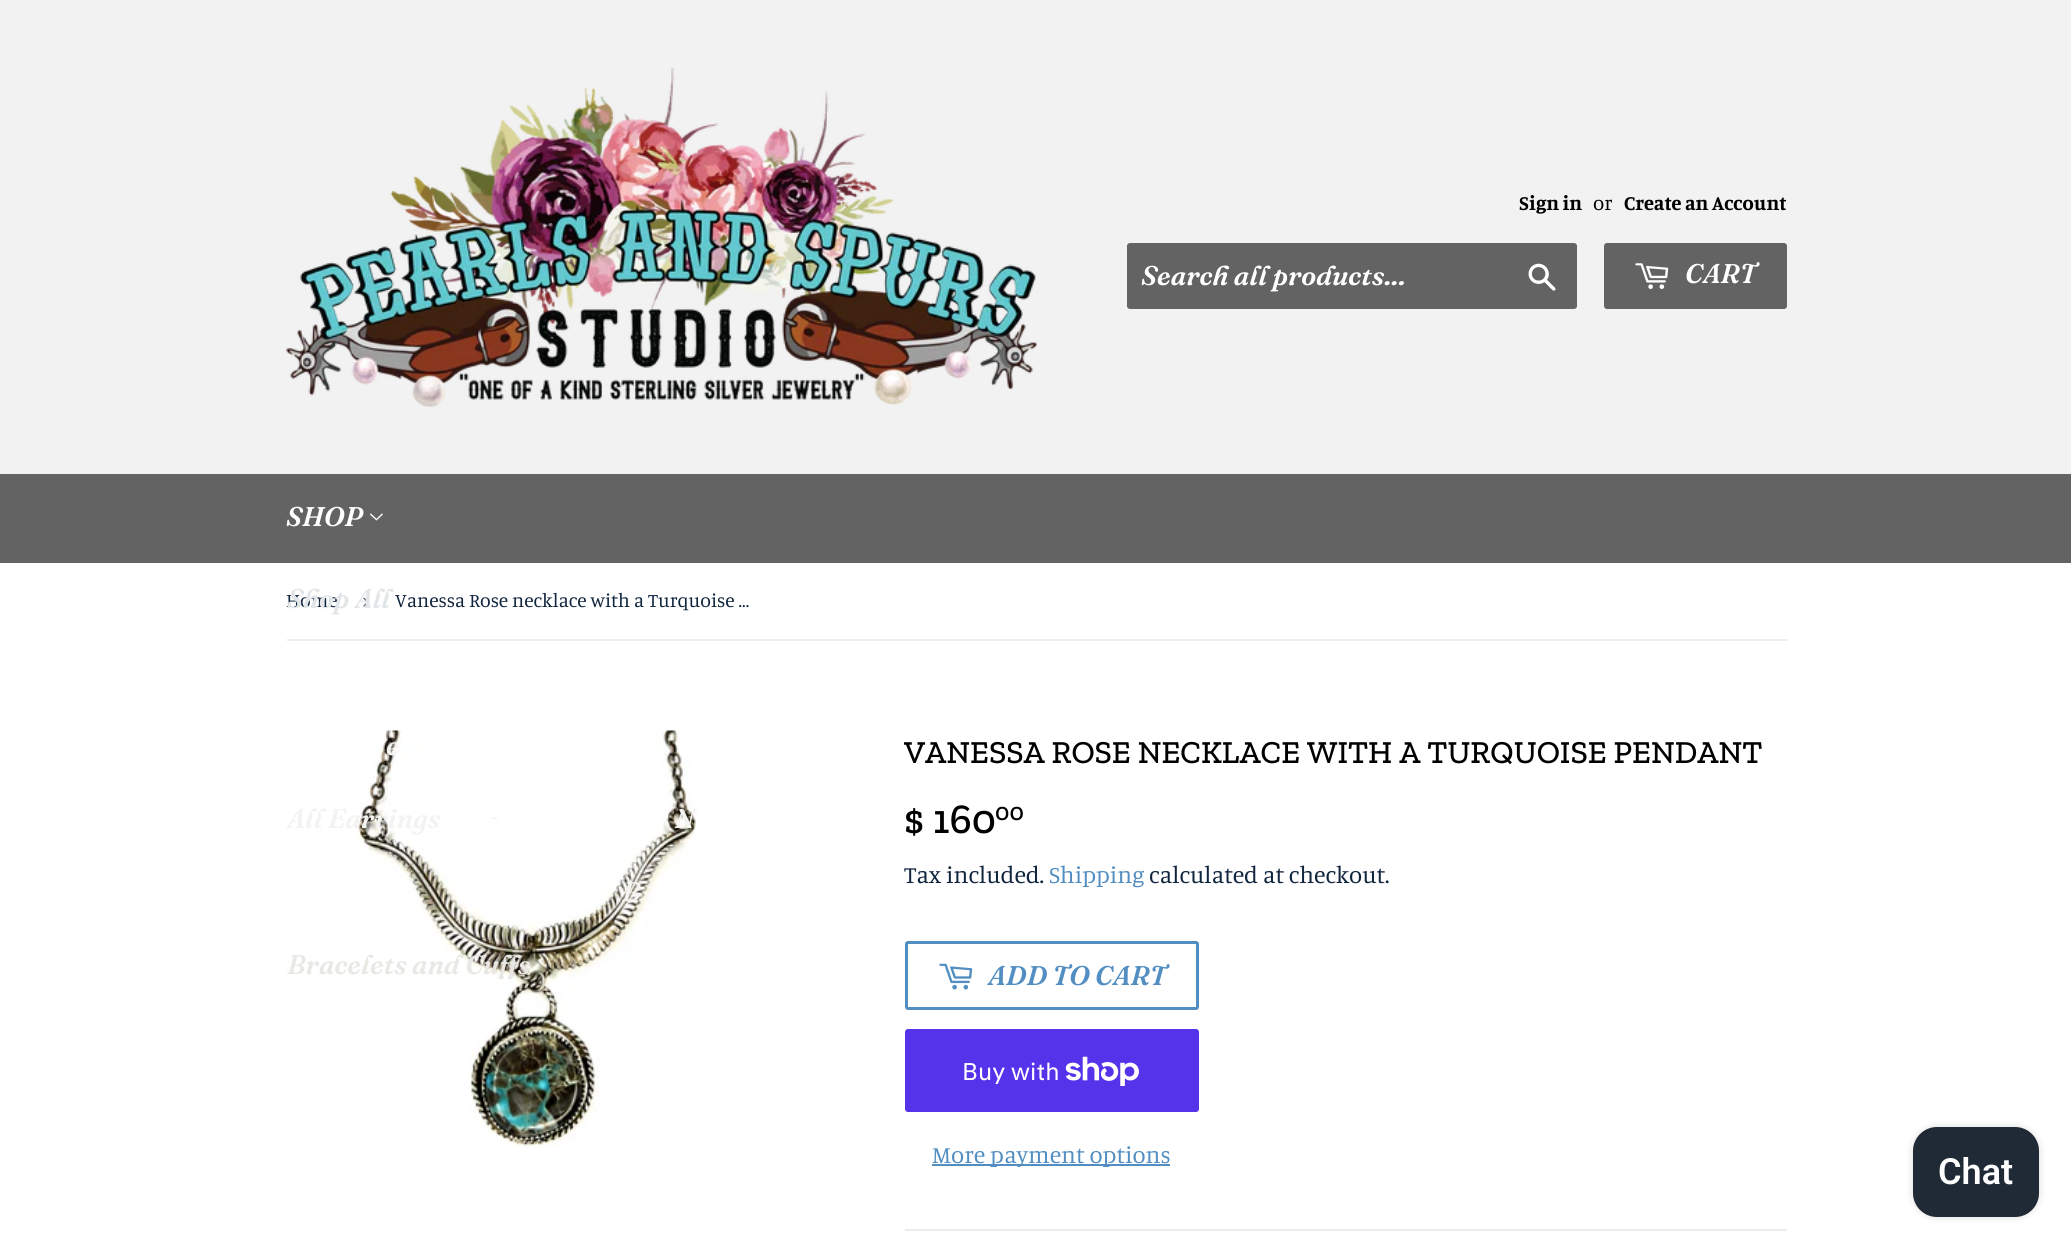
#include <cairo/cairo.h>
#include <math.h>
#include <stddef.h>

typedef struct { double x, y; const char *s; } line_t;
static cairo_t *cr;

static void rgb(unsigned color)
{
	cairo_set_source_rgb(cr, (color >> 16) / 255.0, (color >> 8 & 255) / 255.0, (color & 255) / 255.0);
}

static void rrect(double x, double y, double w, double h, double r)
{
	cairo_new_sub_path(cr);
	cairo_arc(cr, x + w - r, y + h - r, r, 0, M_PI / 2);
	cairo_arc(cr, x + r, y + h - r, r, M_PI / 2, M_PI);
	cairo_arc(cr, x + r, y + r, r, M_PI, 1.5 * M_PI);
	cairo_arc(cr, x + w - r, y + r, r, 1.5 * M_PI, 2 * M_PI);
	cairo_close_path(cr);
}

static void soft_shadow(double x, double y, double w, double h, double r, double blur, double alpha)
{
	cairo_push_group_with_content(cr, CAIRO_CONTENT_ALPHA);
	cairo_set_operator(cr, CAIRO_OPERATOR_SOURCE);
	for (int i = 15; i >= -15 && fmin(w, h) + blur * i / 3 > 0; i -= 2) {
		double e = blur * i / 6;
		cairo_set_source_rgba(cr, 0, 0, 0, alpha * erfc((i - 1) / 8.5) / 2);
		rrect(x - e, y - e, w + 2 * e, h + 2 * e, fmax(0, fmin(r + e + blur * .6, fmin(w, h) / 2 + e)));
		cairo_fill(cr);
	}
	cairo_pattern_t *soft = cairo_pop_group(cr);
	cairo_mask(cr, soft);
	cairo_pattern_destroy(soft);
}

static void image(const char *path, double x, double y, double w, double h)
{
	cairo_surface_t *image = cairo_image_surface_create_from_png(path);
	cairo_save(cr);
	cairo_set_source_surface(cr, image, x, y);
	cairo_rectangle(cr, x, y, w, h);
	cairo_fill(cr);
	cairo_restore(cr);
	cairo_surface_destroy(image);
}

int main(void) {
	cairo_surface_t *surface = cairo_image_surface_create(CAIRO_FORMAT_RGB24, 2071, 1248);
	cr = cairo_create(surface);
	cairo_font_options_t *options = cairo_font_options_create();
	cairo_font_options_set_hint_metrics(options, CAIRO_HINT_METRICS_OFF);
	cairo_font_options_set_hint_style(options, CAIRO_HINT_STYLE_NONE);
	cairo_set_font_options(cr, options);
	cairo_set_miter_limit(cr, 4);
	rgb(0xffffff);
	cairo_paint(cr);
	rgb(0xf2f2f2);
	cairo_rectangle(cr, 0, 0, 2071, 474);
	cairo_fill(cr);
	image("img/1.png", 286, 67, 751, 340);
	rgb(0x636363);
	rrect(1127, 243, 450, 66, 3);
	cairo_fill(cr);
	image("img/2.png", 1528, 263, 28, 28);
	rrect(1604, 243, 183, 66, 3);
	cairo_fill(cr);
	image("img/3.png", 1635, 263, 34, 26);
	cairo_rectangle(cr, 0, 474, 2071, 89);
	cairo_fill(cr);
	image("img/4.png", 370, 513, 13, 8);
	rgb(0xececec);
	cairo_rectangle(cr, 287, 639, 1500, 2);
	cairo_fill(cr);
	image("img/5.png", 356, 730, 341, 417);
	rrect(906.5, 942.5, 291, 66, 1.5);
	rgb(0x528ec1);
	cairo_set_line_width(cr, 3);
	cairo_stroke(cr);
	image("img/6.png", 939, 963, 34, 27);
	rgb(0x5433eb);
	rrect(905, 1029, 294, 83, 3);
	cairo_fill(cr);
	image("img/7.png", 1065, 1056, 74, 30);
	rgb(0x528ec1);
	cairo_rectangle(cr, 932, 1164, 238, 2);
	cairo_fill(cr);
	rgb(0xececec);
	cairo_rectangle(cr, 905, 1229, 882, 2);
	cairo_fill(cr);
	rgb(0x000000);
	soft_shadow(1913, 1127, 126, 90, 24, 4, 0.15);
	rgb(0x202a36);
	rrect(1913, 1127, 126, 90, 24);
	cairo_fill(cr);
	cairo_select_font_face(cr, "Manuale", CAIRO_FONT_SLANT_NORMAL, CAIRO_FONT_WEIGHT_BOLD);
	cairo_set_font_size(cr, 20.5);
	rgb(0x000000);
	cairo_move_to(cr, 1519, 210);
	cairo_show_text(cr, "Sign in");
	cairo_select_font_face(cr, "Manuale", CAIRO_FONT_SLANT_NORMAL, CAIRO_FONT_WEIGHT_NORMAL);
	cairo_move_to(cr, 1593, 210);
	cairo_show_text(cr, "or");
	cairo_select_font_face(cr, "Manuale", CAIRO_FONT_SLANT_NORMAL, CAIRO_FONT_WEIGHT_BOLD);
	cairo_move_to(cr, 1624, 210);
	cairo_show_text(cr, "Create an Account");
	cairo_select_font_face(cr, "Fraunces SemiBold", CAIRO_FONT_SLANT_ITALIC, CAIRO_FONT_WEIGHT_NORMAL);
	cairo_set_font_size(cr, 27);
	rgb(0xffffff);
	{
		static const line_t items[] = {
			{1141, 285, "Search all products..."},
			{1685, 283, "CART"},
			{286, 526, "SHOP"},
		};
		for (size_t i = 0; i < sizeof items / sizeof *items; i++) {
			cairo_move_to(cr, items[i].x, items[i].y);
			cairo_show_text(cr, items[i].s);
		}
	}
	rgb(0xf3f3f2);
	{
		static const line_t items[] = {
			{287, 828, "All Earrings"},
			{386, 755, "e"},
			{675, 828, "N"},
			{622, 901, "B"},
		};
		for (size_t i = 0; i < sizeof items / sizeof *items; i++) {
			cairo_move_to(cr, items[i].x, items[i].y);
			cairo_show_text(cr, items[i].s);
		}
	}
	rgb(0xe9e8e5);
	cairo_move_to(cr, 287, 974);
	cairo_show_text(cr, "Bracelets and Cuffs");
	cairo_select_font_face(cr, "Manuale", CAIRO_FONT_SLANT_NORMAL, CAIRO_FONT_WEIGHT_NORMAL);
	cairo_set_font_size(cr, 19.5);
	rgb(0x0f243d);
	cairo_move_to(cr, 286, 607);
	cairo_show_text(cr, "Home");
	cairo_select_font_face(cr, "Liberation Sans", CAIRO_FONT_SLANT_NORMAL, CAIRO_FONT_WEIGHT_NORMAL);
	cairo_set_font_size(cr, 22);
	rgb(0x767676);
	cairo_move_to(cr, 362, 608);
	cairo_show_text(cr, "›");
	cairo_select_font_face(cr, "Fraunces SemiBold", CAIRO_FONT_SLANT_ITALIC, CAIRO_FONT_WEIGHT_NORMAL);
	cairo_set_font_size(cr, 27);
	rgb(0xe3e6e8);
	cairo_move_to(cr, 287, 608);
	cairo_show_text(cr, "Shop All");
	cairo_select_font_face(cr, "Manuale", CAIRO_FONT_SLANT_NORMAL, CAIRO_FONT_WEIGHT_NORMAL);
	cairo_set_font_size(cr, 19.5);
	rgb(0x0f243d);
	cairo_move_to(cr, 395, 607);
	cairo_show_text(cr, "Vanessa Rose necklace with a Turquoise …");
	cairo_select_font_face(cr, "Zilla Slab Medium", CAIRO_FONT_SLANT_NORMAL, CAIRO_FONT_WEIGHT_NORMAL);
	cairo_set_font_size(cr, 32);
	rgb(0x000000);
	cairo_move_to(cr, 904, 763);
	cairo_show_text(cr, "VANESSA ROSE NECKLACE WITH A TURQUOISE PENDANT");
	cairo_set_font_size(cr, 42);
	cairo_move_to(cr, 904, 833);
	cairo_show_text(cr, "$ 160");
	cairo_set_font_size(cr, 25);
	cairo_move_to(cr, 995, 820);
	cairo_show_text(cr, "00");
	cairo_select_font_face(cr, "Manuale", CAIRO_FONT_SLANT_NORMAL, CAIRO_FONT_WEIGHT_NORMAL);
	cairo_set_font_size(cr, 24);
	rgb(0x0f243d);
	cairo_move_to(cr, 904, 883);
	cairo_show_text(cr, "Tax included.");
	rgb(0x528ec1);
	cairo_move_to(cr, 1049, 883);
	cairo_show_text(cr, "Shipping");
	rgb(0x0f243d);
	cairo_move_to(cr, 1149, 883);
	cairo_show_text(cr, "calculated at checkout.");
	cairo_select_font_face(cr, "Fraunces SemiBold", CAIRO_FONT_SLANT_ITALIC, CAIRO_FONT_WEIGHT_NORMAL);
	cairo_set_font_size(cr, 27);
	rgb(0x528ec1);
	cairo_move_to(cr, 988, 985);
	cairo_show_text(cr, "ADD TO CART");
	cairo_select_font_face(cr, "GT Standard", CAIRO_FONT_SLANT_NORMAL, CAIRO_FONT_WEIGHT_NORMAL);
	cairo_set_font_size(cr, 24);
	rgb(0xffffff);
	cairo_move_to(cr, 962, 1080);
	cairo_show_text(cr, "Buy with");
	cairo_select_font_face(cr, "Manuale", CAIRO_FONT_SLANT_NORMAL, CAIRO_FONT_WEIGHT_NORMAL);
	rgb(0x528ec1);
	cairo_move_to(cr, 932, 1163);
	cairo_show_text(cr, "More payment options");
	cairo_select_font_face(cr, "Roboto SemiBold", CAIRO_FONT_SLANT_NORMAL, CAIRO_FONT_WEIGHT_NORMAL);
	cairo_set_font_size(cr, 36);
	rgb(0xffffff);
	cairo_move_to(cr, 1938, 1184);
	cairo_show_text(cr, "Chat");
	cairo_surface_write_to_png(surface, "page.png");
	cairo_font_options_destroy(options);
	cairo_destroy(cr);
	cairo_surface_destroy(surface);
	return 0;
}
